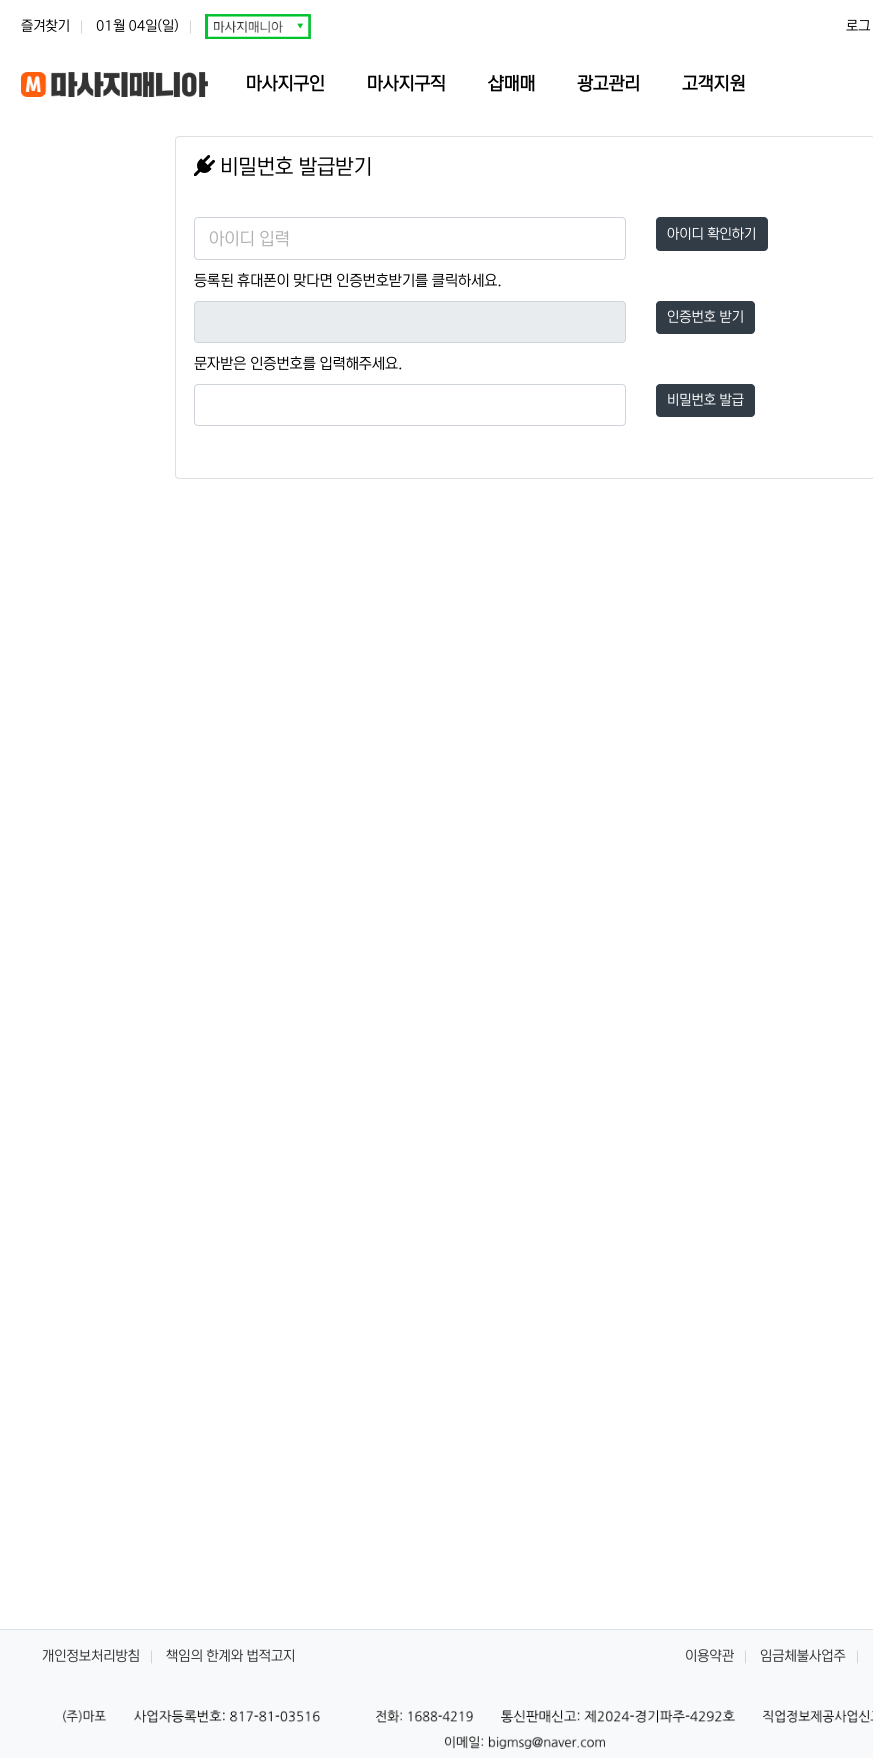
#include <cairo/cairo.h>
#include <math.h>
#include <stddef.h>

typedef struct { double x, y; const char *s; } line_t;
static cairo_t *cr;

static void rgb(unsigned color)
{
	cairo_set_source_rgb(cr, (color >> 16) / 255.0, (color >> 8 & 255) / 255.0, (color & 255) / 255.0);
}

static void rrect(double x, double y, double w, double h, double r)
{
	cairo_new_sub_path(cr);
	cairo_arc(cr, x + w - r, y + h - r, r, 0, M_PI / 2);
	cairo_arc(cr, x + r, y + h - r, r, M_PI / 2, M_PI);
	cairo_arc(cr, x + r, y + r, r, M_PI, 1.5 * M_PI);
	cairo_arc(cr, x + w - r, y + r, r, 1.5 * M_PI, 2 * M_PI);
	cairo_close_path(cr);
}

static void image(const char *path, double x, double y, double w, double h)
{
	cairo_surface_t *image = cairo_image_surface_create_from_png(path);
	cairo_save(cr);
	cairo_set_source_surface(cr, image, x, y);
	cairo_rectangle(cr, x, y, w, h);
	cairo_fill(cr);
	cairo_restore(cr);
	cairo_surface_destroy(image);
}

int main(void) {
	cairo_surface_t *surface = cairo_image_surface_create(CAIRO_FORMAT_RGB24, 873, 1758);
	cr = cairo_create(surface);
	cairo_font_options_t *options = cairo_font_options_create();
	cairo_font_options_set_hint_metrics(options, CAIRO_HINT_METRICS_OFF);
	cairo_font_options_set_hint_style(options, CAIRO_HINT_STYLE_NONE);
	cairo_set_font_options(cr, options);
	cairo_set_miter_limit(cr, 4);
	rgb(0xffffff);
	cairo_paint(cr);
	image("img/1.png", 205, 14, 106, 25);
	image("img/2.png", 21, 72, 187, 25);
	rrect(175.5, 136.5, 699, 342, 3.5);
	rgb(0xdfdfdf);
	cairo_set_line_width(cr, 1);
	cairo_stroke(cr);
	image("img/3.png", 194, 155, 21, 21);
	rrect(194.5, 217.5, 431, 42, 3.5);
	rgb(0xced4da);
	cairo_stroke(cr);
	rgb(0x323c46);
	rrect(656.5, 217.5, 111, 33, 3.5);
	cairo_fill_preserve(cr);
	cairo_stroke(cr);
	rgb(0xe9ecef);
	rrect(194.5, 301.5, 431, 41, 3.5);
	cairo_fill_preserve(cr);
	rgb(0xced4da);
	cairo_stroke(cr);
	rgb(0x323c46);
	rrect(656.5, 301.5, 98, 32, 3.5);
	cairo_fill_preserve(cr);
	cairo_stroke(cr);
	rrect(194.5, 384.5, 431, 41, 3.5);
	rgb(0xced4da);
	cairo_stroke(cr);
	rgb(0x323c46);
	rrect(656.5, 384.5, 98, 32, 3.5);
	cairo_fill_preserve(cr);
	cairo_stroke(cr);
	rgb(0xdee2e6);
	cairo_rectangle(cr, 0, 1629, 873, 1);
	cairo_fill(cr);
	rgb(0xf8f9fa);
	cairo_rectangle(cr, 0, 1630, 873, 128);
	cairo_fill(cr);
	image("img/4.png", 63, 1710, 43, 13);
	image("img/5.png", 134, 1710, 186, 13);
	image("img/6.png", 376, 1710, 97, 13);
	image("img/7.png", 501, 1710, 234, 13);
	image("img/8.png", 763, 1710, 110, 13);
	image("img/9.png", 445, 1736, 160, 13);
	cairo_select_font_face(cr, "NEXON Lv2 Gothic", CAIRO_FONT_SLANT_NORMAL, CAIRO_FONT_WEIGHT_NORMAL);
	cairo_set_font_size(cr, 14);
	rgb(0x000000);
	cairo_move_to(cr, 21, 30);
	cairo_show_text(cr, "즐겨찾기");
	cairo_select_font_face(cr, "Dotum", CAIRO_FONT_SLANT_NORMAL, CAIRO_FONT_WEIGHT_NORMAL);
	rgb(0xcccccc);
	cairo_move_to(cr, 78, 32);
	cairo_show_text(cr, "|");
	cairo_select_font_face(cr, "NEXON Lv2 Gothic", CAIRO_FONT_SLANT_NORMAL, CAIRO_FONT_WEIGHT_NORMAL);
	rgb(0x000000);
	cairo_move_to(cr, 96, 30);
	cairo_show_text(cr, "01월 04일(일)");
	cairo_select_font_face(cr, "Dotum", CAIRO_FONT_SLANT_NORMAL, CAIRO_FONT_WEIGHT_NORMAL);
	rgb(0xcccccc);
	cairo_move_to(cr, 187, 32);
	cairo_show_text(cr, "|");
	cairo_select_font_face(cr, "NEXON Lv2 Gothic", CAIRO_FONT_SLANT_NORMAL, CAIRO_FONT_WEIGHT_NORMAL);
	rgb(0x000000);
	cairo_move_to(cr, 846, 30);
	cairo_show_text(cr, "로그");
	cairo_select_font_face(cr, "NEXON Lv2 Gothic", CAIRO_FONT_SLANT_NORMAL, CAIRO_FONT_WEIGHT_BOLD);
	cairo_set_font_size(cr, 18);
	{
		static const line_t items[] = {
			{246, 89, "마사지구인"},
			{367, 89, "마사지구직"},
			{488, 89, "샵매매"},
			{577, 89, "광고관리"},
			{682, 89, "고객지원"},
		};
		for (size_t i = 0; i < sizeof items / sizeof *items; i++) {
			cairo_move_to(cr, items[i].x, items[i].y);
			cairo_show_text(cr, items[i].s);
		}
	}
	cairo_select_font_face(cr, "NEXON Lv2 Gothic", CAIRO_FONT_SLANT_NORMAL, CAIRO_FONT_WEIGHT_NORMAL);
	cairo_set_font_size(cr, 21);
	cairo_move_to(cr, 220, 173);
	cairo_show_text(cr, "비밀번호 발급받기");
	cairo_set_font_size(cr, 17.5);
	rgb(0xb1b1b1);
	cairo_move_to(cr, 209, 244);
	cairo_show_text(cr, "아이디 입력");
	cairo_set_font_size(cr, 14);
	rgb(0xffffff);
	cairo_move_to(cr, 667, 238);
	cairo_show_text(cr, "아이디 확인하기");
	cairo_set_font_size(cr, 15);
	rgb(0x000000);
	cairo_move_to(cr, 194, 285);
	cairo_show_text(cr, "등록된 휴대폰이 맞다면 인증번호받기를 클릭하세요.");
	cairo_set_font_size(cr, 14);
	rgb(0xffffff);
	cairo_move_to(cr, 667, 321);
	cairo_show_text(cr, "인증번호 받기");
	cairo_set_font_size(cr, 15);
	rgb(0x000000);
	cairo_move_to(cr, 194, 368);
	cairo_show_text(cr, "문자받은 인증번호를 입력해주세요.");
	cairo_set_font_size(cr, 14);
	rgb(0xffffff);
	cairo_move_to(cr, 667, 404);
	cairo_show_text(cr, "비밀번호 발급");
	rgb(0x333333);
	cairo_move_to(cr, 42, 1660);
	cairo_show_text(cr, "개인정보처리방침");
	cairo_select_font_face(cr, "Dotum", CAIRO_FONT_SLANT_NORMAL, CAIRO_FONT_WEIGHT_NORMAL);
	rgb(0xcccccc);
	cairo_move_to(cr, 148, 1662);
	cairo_show_text(cr, "|");
	cairo_select_font_face(cr, "NEXON Lv2 Gothic", CAIRO_FONT_SLANT_NORMAL, CAIRO_FONT_WEIGHT_NORMAL);
	rgb(0x333333);
	cairo_move_to(cr, 166, 1660);
	cairo_show_text(cr, "책임의 한계와 법적고지");
	cairo_move_to(cr, 685, 1660);
	cairo_show_text(cr, "이용약관");
	cairo_select_font_face(cr, "Dotum", CAIRO_FONT_SLANT_NORMAL, CAIRO_FONT_WEIGHT_NORMAL);
	rgb(0xcccccc);
	cairo_move_to(cr, 742, 1662);
	cairo_show_text(cr, "|");
	cairo_select_font_face(cr, "NEXON Lv2 Gothic", CAIRO_FONT_SLANT_NORMAL, CAIRO_FONT_WEIGHT_NORMAL);
	rgb(0x333333);
	cairo_move_to(cr, 760, 1660);
	cairo_show_text(cr, "임금체불사업주");
	cairo_select_font_face(cr, "Dotum", CAIRO_FONT_SLANT_NORMAL, CAIRO_FONT_WEIGHT_NORMAL);
	rgb(0xcccccc);
	cairo_move_to(cr, 854, 1662);
	cairo_show_text(cr, "|");
	cairo_surface_write_to_png(surface, "page.png");
	cairo_font_options_destroy(options);
	cairo_destroy(cr);
	cairo_surface_destroy(surface);
	return 0;
}
